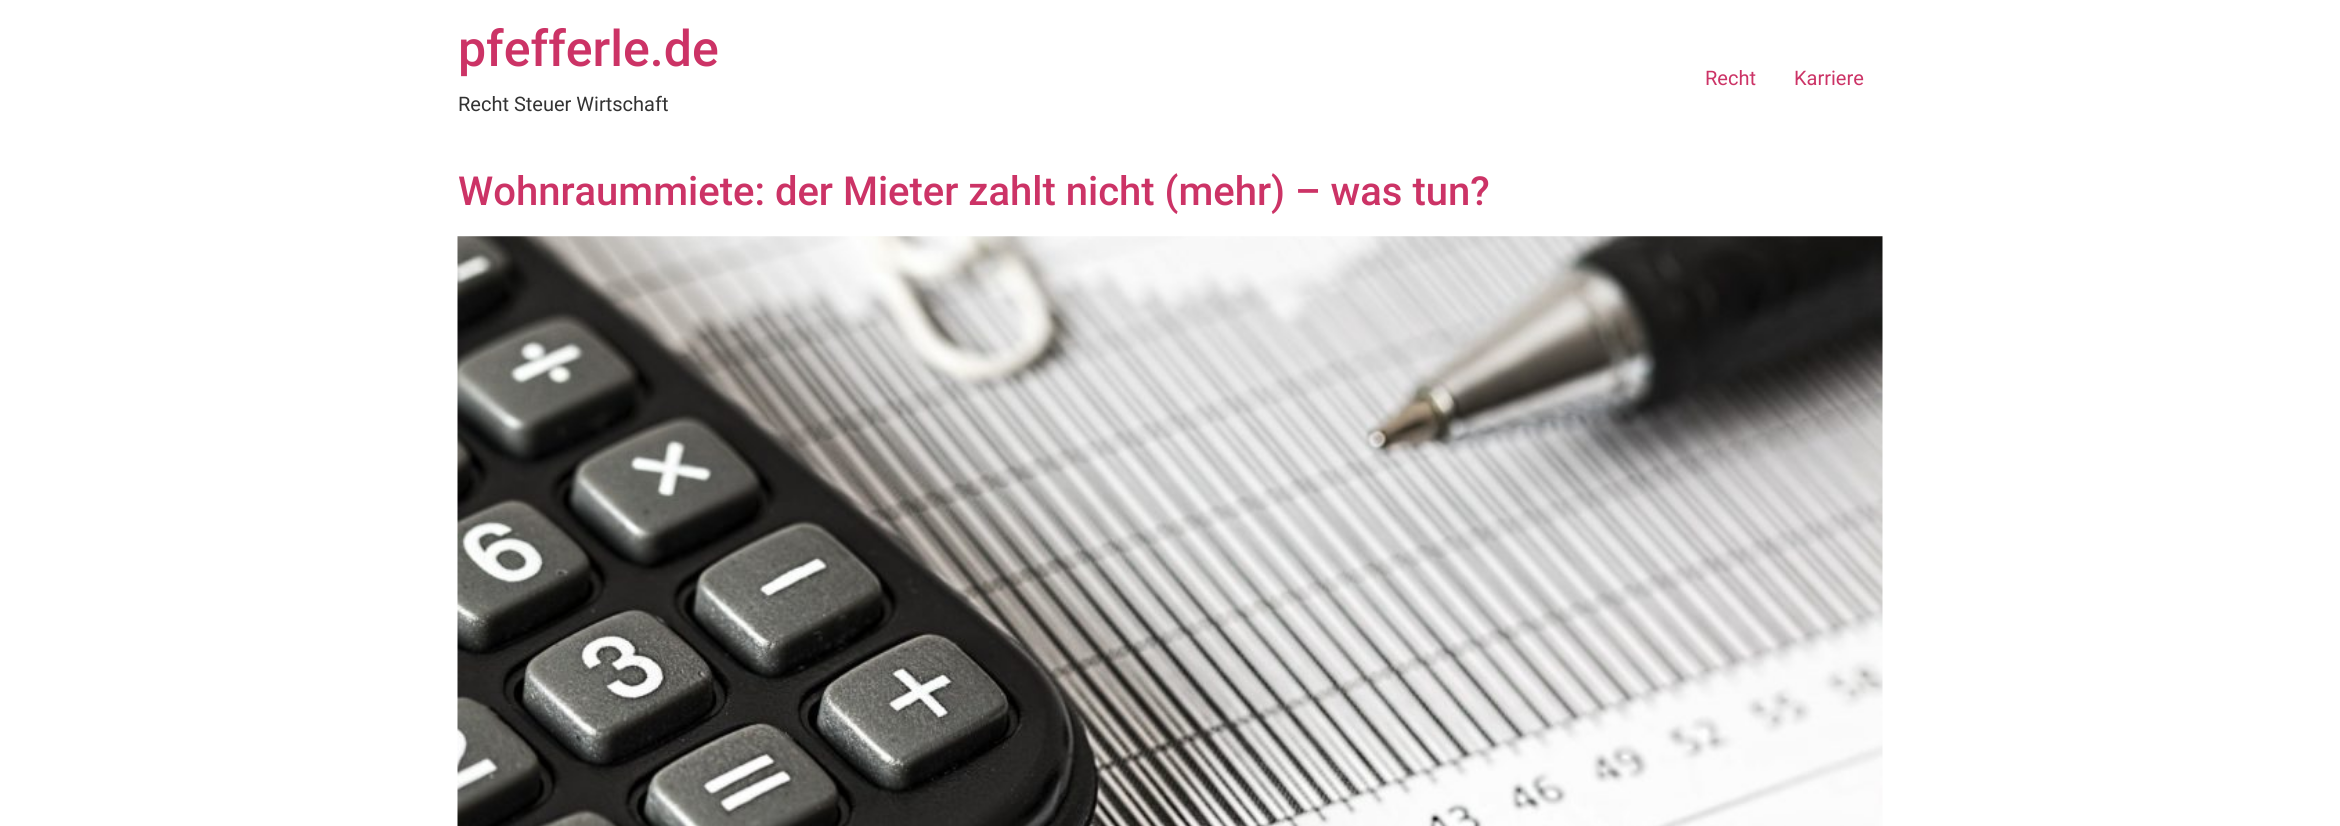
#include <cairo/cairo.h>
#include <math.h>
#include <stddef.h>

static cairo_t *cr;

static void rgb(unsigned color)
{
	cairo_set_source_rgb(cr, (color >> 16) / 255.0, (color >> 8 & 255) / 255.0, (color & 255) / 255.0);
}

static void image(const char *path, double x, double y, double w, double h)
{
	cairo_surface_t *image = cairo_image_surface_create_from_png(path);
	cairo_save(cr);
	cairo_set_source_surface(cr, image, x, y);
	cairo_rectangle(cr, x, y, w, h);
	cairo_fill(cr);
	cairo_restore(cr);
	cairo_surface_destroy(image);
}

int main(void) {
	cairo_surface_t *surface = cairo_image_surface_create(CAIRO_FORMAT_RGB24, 2340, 826);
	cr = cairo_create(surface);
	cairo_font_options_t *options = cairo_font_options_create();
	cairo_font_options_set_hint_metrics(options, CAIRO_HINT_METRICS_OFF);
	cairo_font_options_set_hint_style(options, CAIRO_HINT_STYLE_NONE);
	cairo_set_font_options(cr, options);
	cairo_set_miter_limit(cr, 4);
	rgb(0xffffff);
	cairo_paint(cr);
	image("img/1.png", 457, 236, 1426, 590);
	cairo_select_font_face(cr, "Roboto Medium", CAIRO_FONT_SLANT_NORMAL, CAIRO_FONT_WEIGHT_NORMAL);
	cairo_set_font_size(cr, 50);
	rgb(0xcc3366);
	cairo_move_to(cr, 458, 66);
	cairo_show_text(cr, "pfefferle.de");
	cairo_select_font_face(cr, "Roboto", CAIRO_FONT_SLANT_NORMAL, CAIRO_FONT_WEIGHT_NORMAL);
	cairo_set_font_size(cr, 20);
	rgb(0x333333);
	cairo_move_to(cr, 458, 111);
	cairo_show_text(cr, "Recht Steuer Wirtschaft");
	rgb(0xcc3366);
	cairo_move_to(cr, 1705, 85);
	cairo_show_text(cr, "Recht");
	cairo_move_to(cr, 1794, 85);
	cairo_show_text(cr, "Karriere");
	cairo_select_font_face(cr, "Roboto Medium", CAIRO_FONT_SLANT_NORMAL, CAIRO_FONT_WEIGHT_NORMAL);
	cairo_set_font_size(cr, 40);
	cairo_move_to(cr, 458, 205);
	cairo_show_text(cr, "Wohnraummiete: der Mieter zahlt nicht (mehr) – was tun?");
	cairo_surface_write_to_png(surface, "page.png");
	cairo_font_options_destroy(options);
	cairo_destroy(cr);
	cairo_surface_destroy(surface);
	return 0;
}
